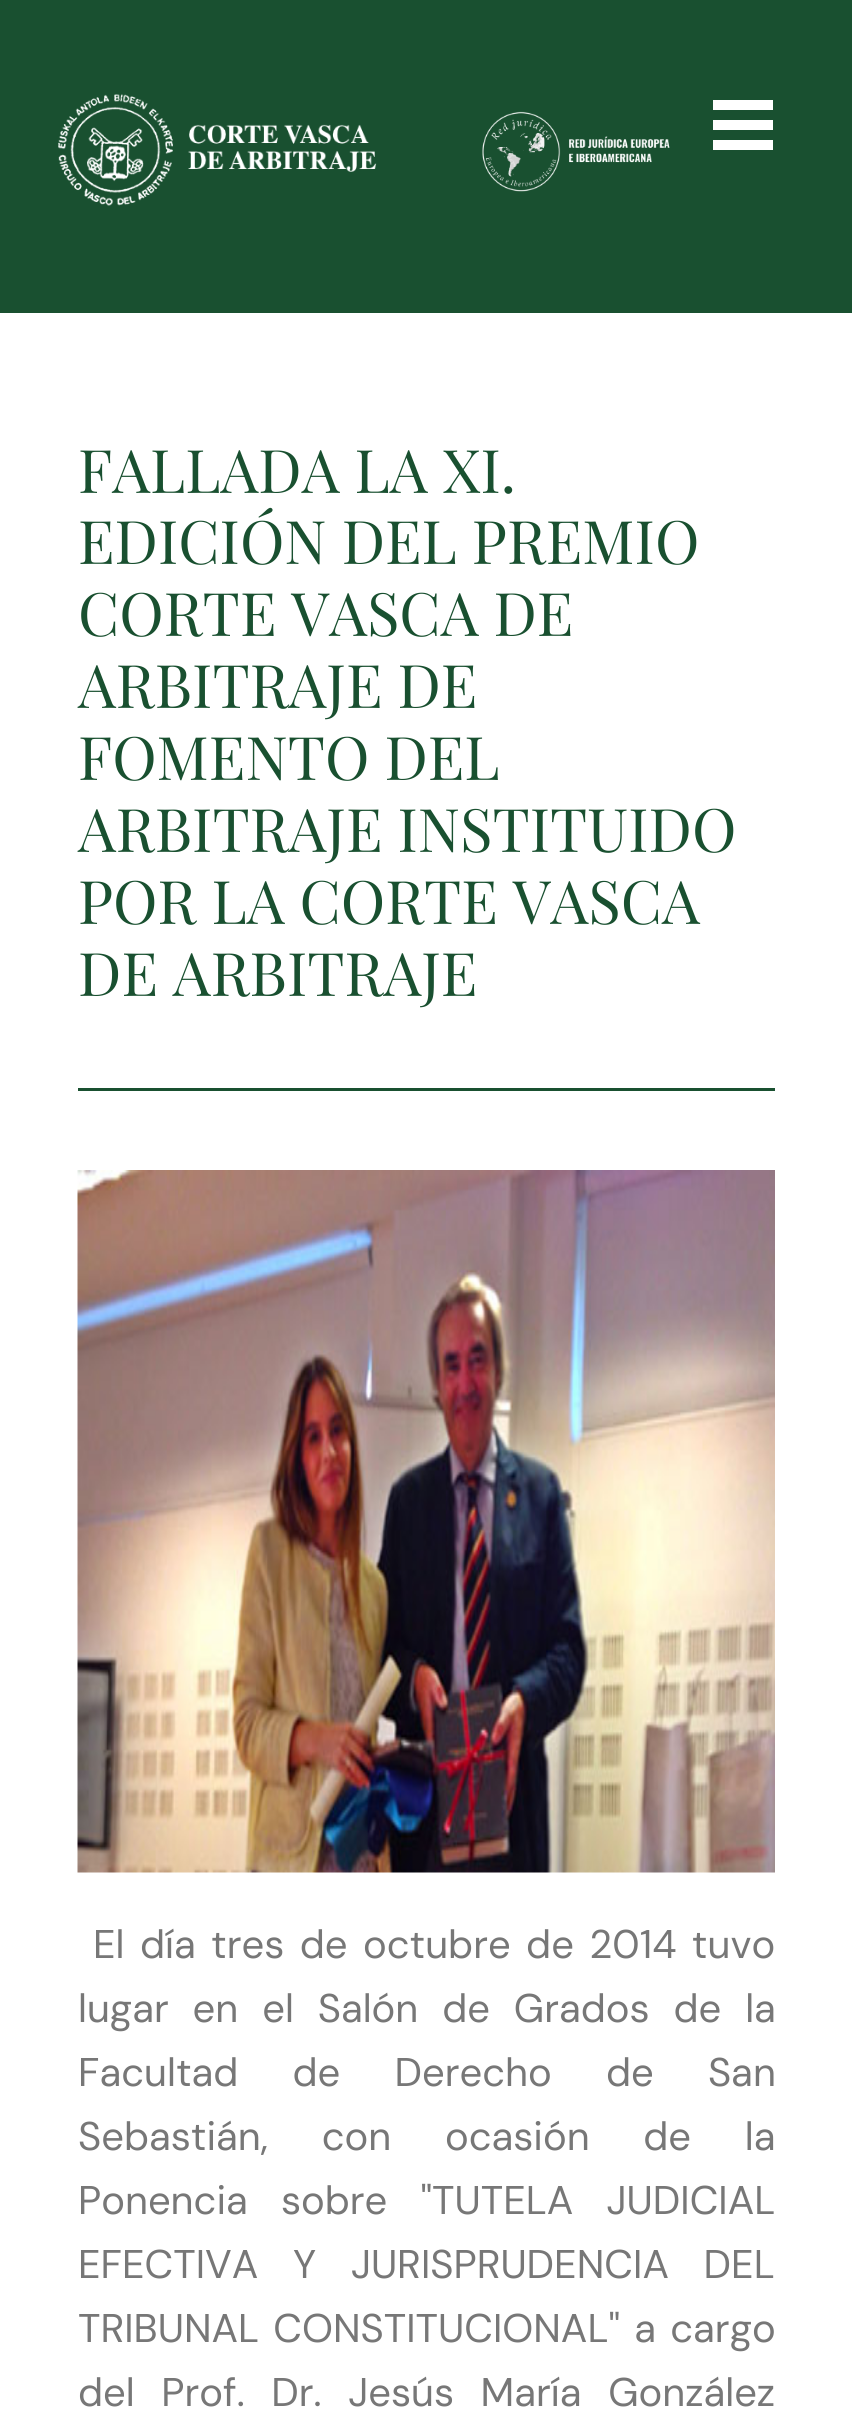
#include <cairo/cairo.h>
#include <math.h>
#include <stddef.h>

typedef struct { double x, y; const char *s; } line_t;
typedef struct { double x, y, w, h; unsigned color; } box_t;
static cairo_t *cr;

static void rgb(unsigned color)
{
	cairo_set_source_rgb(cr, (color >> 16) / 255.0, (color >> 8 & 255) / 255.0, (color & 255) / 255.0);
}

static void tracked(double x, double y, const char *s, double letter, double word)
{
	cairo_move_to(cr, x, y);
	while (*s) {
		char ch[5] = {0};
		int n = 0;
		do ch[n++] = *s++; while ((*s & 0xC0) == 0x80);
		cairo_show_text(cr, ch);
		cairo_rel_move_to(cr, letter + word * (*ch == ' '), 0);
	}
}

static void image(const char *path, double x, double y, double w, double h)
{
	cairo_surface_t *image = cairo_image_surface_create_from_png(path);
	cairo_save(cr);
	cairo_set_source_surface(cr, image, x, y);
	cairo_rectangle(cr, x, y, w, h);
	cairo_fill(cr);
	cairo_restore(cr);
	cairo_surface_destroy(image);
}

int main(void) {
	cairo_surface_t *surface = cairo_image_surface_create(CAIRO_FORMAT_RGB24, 852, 2414);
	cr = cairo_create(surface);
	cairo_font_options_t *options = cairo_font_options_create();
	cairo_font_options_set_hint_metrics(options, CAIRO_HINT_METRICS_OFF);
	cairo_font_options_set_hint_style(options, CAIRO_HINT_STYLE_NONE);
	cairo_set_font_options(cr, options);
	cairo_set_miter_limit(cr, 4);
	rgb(0xffffff);
	cairo_paint(cr);
	rgb(0x195030);
	cairo_rectangle(cr, 0, 0, 852, 313);
	cairo_fill(cr);
	image("img/1.png", 58, 94, 319, 112);
	image("img/2.png", 482, 111, 188, 81);
	{
		static const box_t items[] = {
			{713, 120, 60, 10, 0xffffff},
			{713, 100, 60, 10, 0xffffff},
			{713, 140, 60, 10, 0xffffff},
			{78, 1088, 697, 3, 0x195030},
		};
		for (size_t i = 0; i < sizeof items / sizeof *items; i++) {
			rgb(items[i].color);
			cairo_rectangle(cr, items[i].x, items[i].y, items[i].w, items[i].h);
			cairo_fill(cr);
		}
	}
	image("img/3.png", 77, 1170, 698, 703);
	cairo_select_font_face(cr, "Playfair Display", CAIRO_FONT_SLANT_NORMAL, CAIRO_FONT_WEIGHT_NORMAL);
	cairo_set_font_size(cr, 60);
	{
		static const line_t items[] = {
			{78, 493, "FALLADA LA XI."},
			{78, 564, "EDICIÓN DEL PREMIO"},
			{78, 636, "CORTE VASCA DE"},
			{78, 708, "ARBITRAJE DE"},
			{78, 780, "FOMENTO DEL"},
			{78, 852, "ARBITRAJE INSTITUIDO"},
			{78, 924, "POR LA CORTE VASCA"},
			{78, 996, "DE ARBITRAJE"},
		};
		for (size_t i = 0; i < sizeof items / sizeof *items; i++) {
			cairo_move_to(cr, items[i].x, items[i].y);
			cairo_show_text(cr, items[i].s);
		}
	}
	cairo_select_font_face(cr, "DM Sans", CAIRO_FONT_SLANT_NORMAL, CAIRO_FONT_WEIGHT_NORMAL);
	cairo_set_font_size(cr, 40);
	rgb(0x777777);
	tracked(93, 1958, "El día tres de octubre de 2014 tuvo", 0, 4.75);
	tracked(78, 2022, "lugar en el Salón de Grados de la", 0, 13.25);
	tracked(78, 2086, "Facultad de Derecho de San", 0, 43.5);
	tracked(78, 2150, "Sebastián, con ocasión de la", 0, 43);
	tracked(78, 2214, "Ponencia sobre \"TUTELA JUDICIAL", 0, 22.5);
	tracked(78, 2278, "EFECTIVA Y JURISPRUDENCIA DEL", 0, 24);
	tracked(78, 2342, "TRIBUNAL CONSTITUCIONAL\" a cargo", 0, 3.5);
	tracked(78, 2406, "del Prof. Dr. Jesús María González", 0, 16);
	cairo_surface_write_to_png(surface, "page.png");
	cairo_font_options_destroy(options);
	cairo_destroy(cr);
	cairo_surface_destroy(surface);
	return 0;
}
